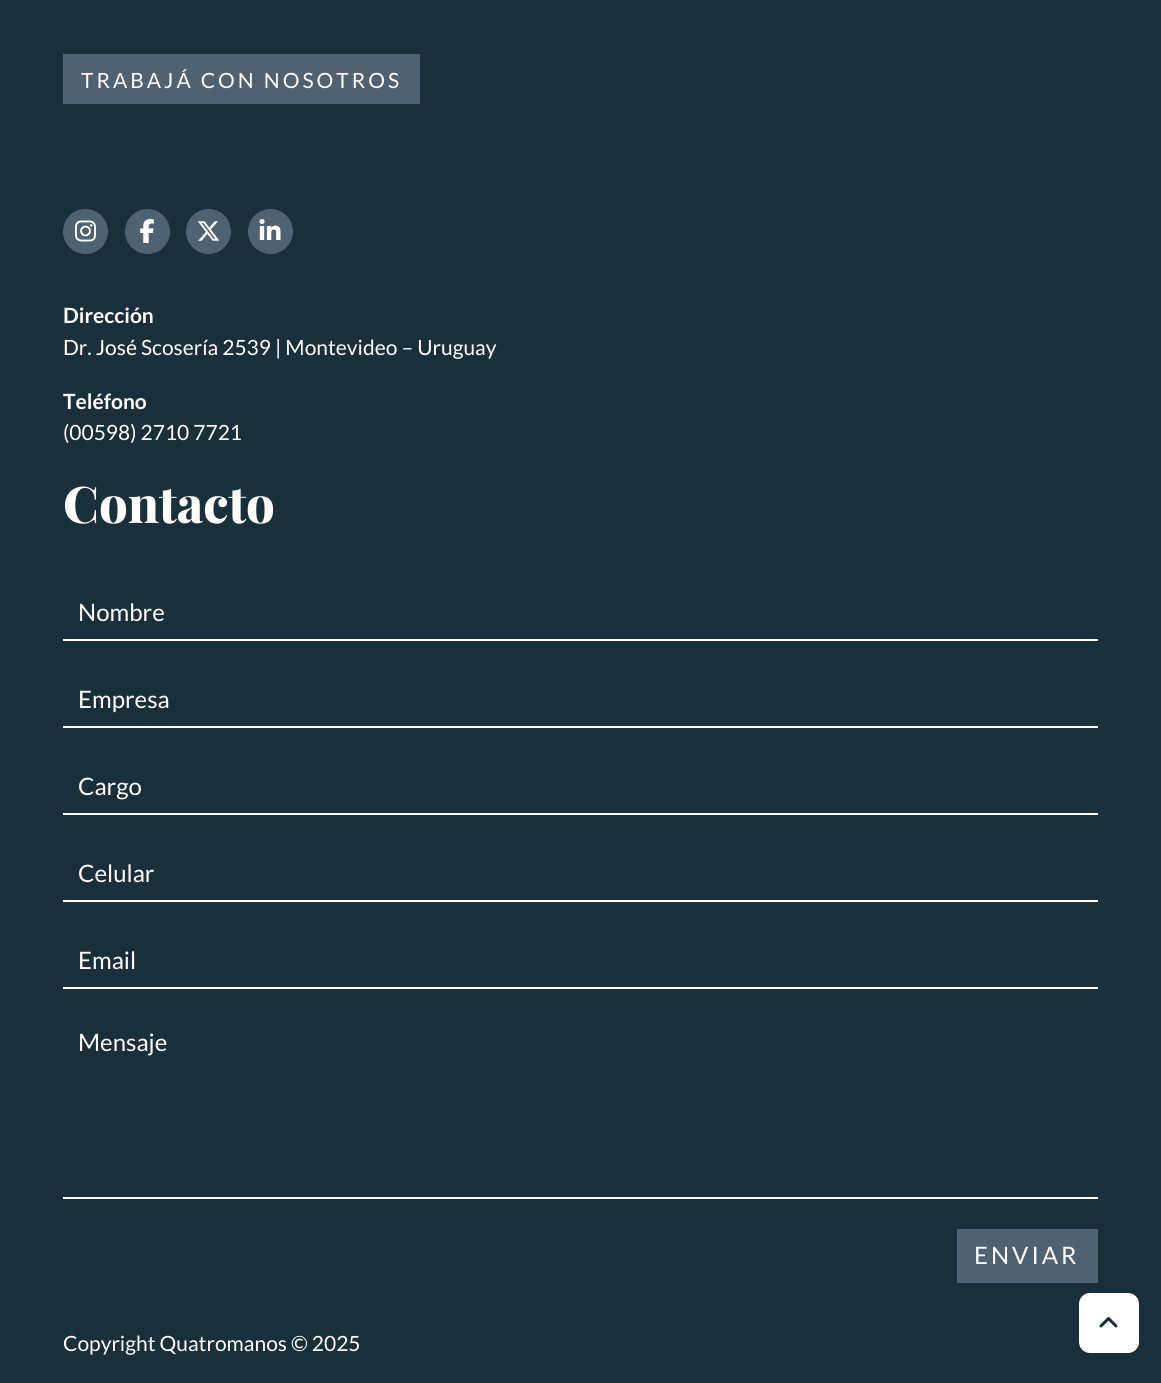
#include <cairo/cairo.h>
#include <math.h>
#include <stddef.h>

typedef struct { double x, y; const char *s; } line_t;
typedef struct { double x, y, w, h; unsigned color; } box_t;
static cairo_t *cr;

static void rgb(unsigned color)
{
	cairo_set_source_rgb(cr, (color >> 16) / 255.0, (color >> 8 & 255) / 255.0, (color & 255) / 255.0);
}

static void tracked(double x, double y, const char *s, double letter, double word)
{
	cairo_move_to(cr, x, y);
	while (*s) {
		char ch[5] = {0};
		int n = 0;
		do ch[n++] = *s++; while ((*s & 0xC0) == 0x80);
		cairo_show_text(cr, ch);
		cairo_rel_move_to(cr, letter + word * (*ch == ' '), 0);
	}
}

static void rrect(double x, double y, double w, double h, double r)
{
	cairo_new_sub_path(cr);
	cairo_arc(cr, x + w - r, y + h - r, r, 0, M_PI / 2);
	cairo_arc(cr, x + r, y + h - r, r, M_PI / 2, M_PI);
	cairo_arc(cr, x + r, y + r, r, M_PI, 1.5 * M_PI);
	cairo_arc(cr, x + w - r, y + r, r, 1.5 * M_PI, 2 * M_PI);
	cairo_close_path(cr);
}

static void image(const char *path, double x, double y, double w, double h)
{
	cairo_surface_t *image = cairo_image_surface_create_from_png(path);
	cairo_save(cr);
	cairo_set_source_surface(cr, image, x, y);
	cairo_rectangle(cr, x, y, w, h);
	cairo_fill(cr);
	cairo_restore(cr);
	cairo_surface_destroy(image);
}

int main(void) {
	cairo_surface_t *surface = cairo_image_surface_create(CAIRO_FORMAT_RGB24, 1161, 1383);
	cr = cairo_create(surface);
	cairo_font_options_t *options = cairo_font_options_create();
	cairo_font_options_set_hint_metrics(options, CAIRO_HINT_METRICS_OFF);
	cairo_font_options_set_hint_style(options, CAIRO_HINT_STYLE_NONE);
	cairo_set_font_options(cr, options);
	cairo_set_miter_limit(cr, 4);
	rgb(0x19303b);
	cairo_paint(cr);
	rgb(0x4f6272);
	cairo_rectangle(cr, 63, 54, 357, 50);
	cairo_fill(cr);
	cairo_arc(cr, 85.5, 231.5, 22.5, 0, 2 * M_PI);
	cairo_fill(cr);
	image("img/1.png", 75, 220, 21, 22);
	cairo_arc(cr, 147.5, 231.5, 22.5, 0, 2 * M_PI);
	cairo_fill(cr);
	image("img/2.png", 140, 219, 14, 24);
	cairo_arc(cr, 208.5, 231.5, 22.5, 0, 2 * M_PI);
	cairo_fill(cr);
	image("img/3.png", 197, 221, 23, 20);
	cairo_arc(cr, 270.5, 231.5, 22.5, 0, 2 * M_PI);
	cairo_fill(cr);
	image("img/4.png", 259, 219, 22, 21);
	{
		static const box_t items[] = {
			{63, 639, 1035, 2, 0xffffff},
			{63, 726, 1035, 2, 0xffffff},
			{63, 813, 1035, 2, 0xffffff},
			{63, 900, 1035, 2, 0xffffff},
			{63, 987, 1035, 2, 0xffffff},
			{63, 1197, 1035, 2, 0xffffff},
			{957, 1229, 141, 54, 0x4f6272},
		};
		for (size_t i = 0; i < sizeof items / sizeof *items; i++) {
			rgb(items[i].color);
			cairo_rectangle(cr, items[i].x, items[i].y, items[i].w, items[i].h);
			cairo_fill(cr);
		}
	}
	rgb(0xffffff);
	rrect(1079, 1293, 60, 60, 11);
	cairo_fill(cr);
	image("img/5.png", 1099, 1317, 19, 11);
	cairo_select_font_face(cr, "Lato", CAIRO_FONT_SLANT_NORMAL, CAIRO_FONT_WEIGHT_NORMAL);
	cairo_set_font_size(cr, 21);
	tracked(81, 88, "TRABAJÁ CON NOSOTROS", 3, 0);
	cairo_select_font_face(cr, "Lato", CAIRO_FONT_SLANT_NORMAL, CAIRO_FONT_WEIGHT_BOLD);
	cairo_move_to(cr, 63, 323);
	cairo_show_text(cr, "Dirección");
	cairo_select_font_face(cr, "Lato", CAIRO_FONT_SLANT_NORMAL, CAIRO_FONT_WEIGHT_NORMAL);
	cairo_move_to(cr, 63, 355);
	cairo_show_text(cr, "Dr. José Scosería 2539 | Montevideo – Uruguay");
	cairo_select_font_face(cr, "Lato", CAIRO_FONT_SLANT_NORMAL, CAIRO_FONT_WEIGHT_BOLD);
	cairo_move_to(cr, 63, 409);
	cairo_show_text(cr, "Teléfono");
	cairo_select_font_face(cr, "Lato", CAIRO_FONT_SLANT_NORMAL, CAIRO_FONT_WEIGHT_NORMAL);
	cairo_move_to(cr, 63, 440);
	cairo_show_text(cr, "(00598) 2710 7721");
	cairo_select_font_face(cr, "Playfair Display ExtraBold", CAIRO_FONT_SLANT_NORMAL, CAIRO_FONT_WEIGHT_NORMAL);
	cairo_set_font_size(cr, 50.5);
	cairo_move_to(cr, 63, 523);
	cairo_show_text(cr, "Contacto");
	cairo_select_font_face(cr, "Lato", CAIRO_FONT_SLANT_NORMAL, CAIRO_FONT_WEIGHT_NORMAL);
	cairo_set_font_size(cr, 24);
	{
		static const line_t items[] = {
			{78, 621, "Nombre"},
			{78, 708, "Empresa"},
			{78, 795, "Cargo"},
			{78, 882, "Celular"},
			{78, 969, "Email"},
			{78, 1051, "Mensaje"},
		};
		for (size_t i = 0; i < sizeof items / sizeof *items; i++) {
			cairo_move_to(cr, items[i].x, items[i].y);
			cairo_show_text(cr, items[i].s);
		}
	}
	tracked(974, 1264, "ENVIAR", 3, 0);
	cairo_set_font_size(cr, 21);
	cairo_move_to(cr, 63, 1351);
	cairo_show_text(cr, "Copyright Quatromanos © 2025");
	cairo_surface_write_to_png(surface, "page.png");
	cairo_font_options_destroy(options);
	cairo_destroy(cr);
	cairo_surface_destroy(surface);
	return 0;
}
